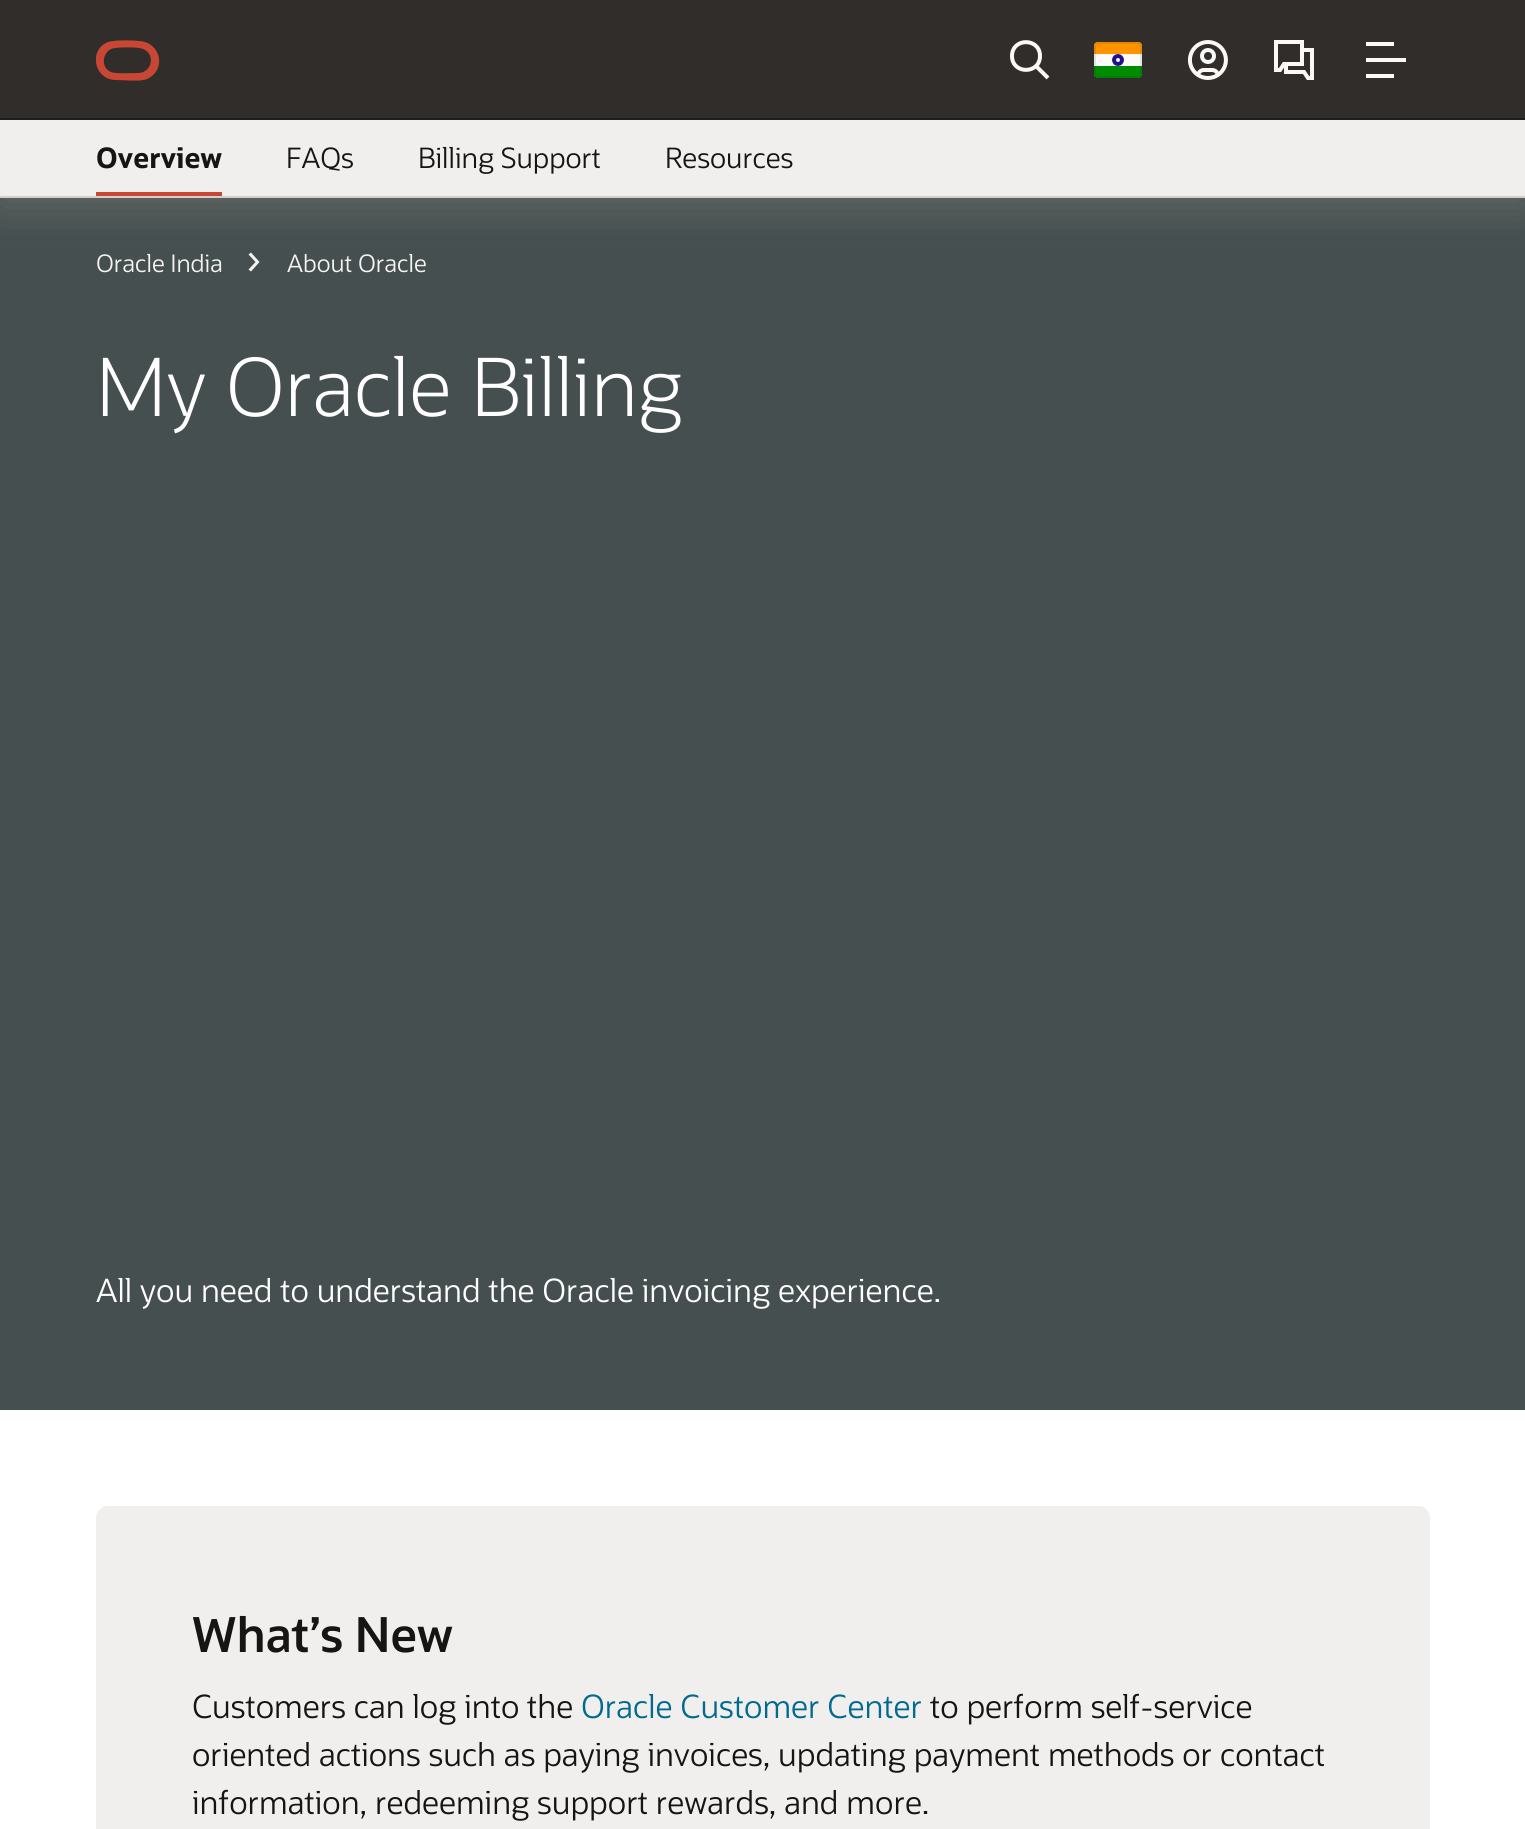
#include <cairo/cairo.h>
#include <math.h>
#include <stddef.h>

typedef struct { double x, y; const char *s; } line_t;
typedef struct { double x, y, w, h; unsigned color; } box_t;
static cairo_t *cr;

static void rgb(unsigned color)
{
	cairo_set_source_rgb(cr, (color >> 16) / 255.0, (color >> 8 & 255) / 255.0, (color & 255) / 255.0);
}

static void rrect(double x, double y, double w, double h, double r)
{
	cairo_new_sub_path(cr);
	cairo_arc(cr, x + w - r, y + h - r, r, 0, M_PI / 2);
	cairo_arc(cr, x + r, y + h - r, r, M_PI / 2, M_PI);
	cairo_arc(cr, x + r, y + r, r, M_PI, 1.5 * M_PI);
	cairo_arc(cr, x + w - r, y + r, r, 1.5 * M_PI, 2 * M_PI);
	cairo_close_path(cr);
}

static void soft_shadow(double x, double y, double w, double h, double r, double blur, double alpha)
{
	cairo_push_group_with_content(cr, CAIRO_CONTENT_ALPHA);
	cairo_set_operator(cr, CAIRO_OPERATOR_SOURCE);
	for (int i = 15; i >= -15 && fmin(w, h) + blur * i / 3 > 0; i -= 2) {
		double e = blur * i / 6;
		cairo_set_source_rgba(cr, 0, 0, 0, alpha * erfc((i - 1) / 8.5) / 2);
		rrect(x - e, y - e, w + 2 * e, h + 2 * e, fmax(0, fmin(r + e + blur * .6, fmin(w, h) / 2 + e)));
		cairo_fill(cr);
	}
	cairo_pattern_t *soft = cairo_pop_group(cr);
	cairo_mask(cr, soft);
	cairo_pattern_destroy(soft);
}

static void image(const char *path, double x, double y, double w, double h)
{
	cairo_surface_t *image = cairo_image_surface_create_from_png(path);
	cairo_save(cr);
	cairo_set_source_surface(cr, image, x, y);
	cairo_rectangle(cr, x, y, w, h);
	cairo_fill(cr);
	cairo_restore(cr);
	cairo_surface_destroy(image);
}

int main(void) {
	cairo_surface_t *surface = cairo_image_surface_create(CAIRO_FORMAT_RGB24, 1525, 1829);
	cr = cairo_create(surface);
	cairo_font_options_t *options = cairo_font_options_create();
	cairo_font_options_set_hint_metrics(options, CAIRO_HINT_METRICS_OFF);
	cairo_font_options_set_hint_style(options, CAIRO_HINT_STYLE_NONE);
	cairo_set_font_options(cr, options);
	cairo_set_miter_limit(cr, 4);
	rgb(0xffffff);
	cairo_paint(cr);
	rgb(0x464f4f);
	cairo_rectangle(cr, 0, 198, 1525, 1212);
	cairo_fill(cr);
	rgb(0xf5f4f2);
	cairo_new_path(cr);
	cairo_move_to(cr, 248.5, 269.5);
	cairo_line_to(cr, 251, 271.5);
	cairo_line_to(cr, 259.5, 262);
	cairo_line_to(cr, 251, 252.5);
	cairo_line_to(cr, 248.5, 254.5);
	cairo_line_to(cr, 255.5, 262);
	cairo_close_path(cr);
	cairo_fill(cr);
	rgb(0xd4cfca);
	soft_shadow(0, 130, 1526, 76, 0, 20, 0.2);
	rgb(0x312d2a);
	cairo_rectangle(cr, 0, 0, 1525, 118);
	cairo_fill(cr);
	cairo_save(cr);
	cairo_rectangle(cr, 96, 40, 64, 42);
	cairo_clip(cr);
	rgb(0xc74634);
	cairo_new_path(cr);
	cairo_move_to(cr, 116, 80);
	cairo_curve_to(cr, 94, 80, 88, 50, 108, 42);
	cairo_curve_to(cr, 114, 40, 132, 40, 139, 41);
	cairo_curve_to(cr, 161, 42, 167, 70, 147, 79);
	cairo_curve_to(cr, 140, 82, 124, 80, 116, 80);
	cairo_move_to(cr, 138, 73);
	cairo_curve_to(cr, 152, 73, 156, 54, 143, 49);
	cairo_curve_to(cr, 139, 47, 122, 47, 116, 48);
	cairo_curve_to(cr, 103, 48, 99, 67, 111, 72);
	cairo_curve_to(cr, 116, 74, 132, 73, 138, 73);
	cairo_fill(cr);
	cairo_restore(cr);
	cairo_new_path(cr);
	cairo_move_to(cr, 1036, 66);
	cairo_line_to(cr, 1048, 78);
	cairo_move_to(cr, 1040, 56);
	cairo_curve_to(cr, 1040, 74.5, 1012, 74.5, 1012, 56);
	cairo_curve_to(cr, 1012, 37.5, 1040, 37.5, 1040, 56);
	cairo_close_path(cr);
	rgb(0xfbf9f8);
	cairo_set_line_width(cr, 4);
	cairo_stroke(cr);
	image("img/1.png", 1094, 42, 48, 36);
	image("img/2.png", 1187, 40, 41, 40);
	image("img/3.png", 1274, 40, 40, 40);
	image("img/4.png", 1366, 42, 40, 36);
	{
		static const box_t items[] = {
			{0, 118, 1525, 2, 0x201e1c},
			{0, 120, 1525, 76, 0xf1efed},
			{96, 192, 126, 4, 0xc74634},
			{0, 196, 1525, 2, 0xd4cfca},
		};
		for (size_t i = 0; i < sizeof items / sizeof *items; i++) {
			rgb(items[i].color);
			cairo_rectangle(cr, items[i].x, items[i].y, items[i].w, items[i].h);
			cairo_fill(cr);
		}
	}
	rgb(0xf1efed);
	rrect(96, 1506, 1334, 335, 12);
	cairo_fill(cr);
	cairo_select_font_face(cr, "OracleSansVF", CAIRO_FONT_SLANT_NORMAL, CAIRO_FONT_WEIGHT_BOLD);
	cairo_set_font_size(cr, 28);
	rgb(0x161513);
	cairo_move_to(cr, 96, 168);
	cairo_show_text(cr, "Overview");
	cairo_select_font_face(cr, "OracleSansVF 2 Light", CAIRO_FONT_SLANT_NORMAL, CAIRO_FONT_WEIGHT_NORMAL);
	{
		static const line_t items[] = {
			{286, 168, "FAQs"},
			{418, 168, "Billing Support"},
			{665, 168, "Resources"},
		};
		for (size_t i = 0; i < sizeof items / sizeof *items; i++) {
			cairo_move_to(cr, items[i].x, items[i].y);
			cairo_show_text(cr, items[i].s);
		}
	}
	cairo_set_font_size(cr, 24);
	rgb(0xf5f4f2);
	cairo_move_to(cr, 96, 272);
	cairo_show_text(cr, "Oracle India");
	cairo_move_to(cr, 287, 272);
	cairo_show_text(cr, "About Oracle");
	cairo_select_font_face(cr, "OracleSansVF Light", CAIRO_FONT_SLANT_NORMAL, CAIRO_FONT_WEIGHT_NORMAL);
	cairo_set_font_size(cr, 80);
	rgb(0xffffff);
	cairo_move_to(cr, 96, 416);
	cairo_show_text(cr, "My Oracle Billing");
	cairo_select_font_face(cr, "OracleSansVF 2 Light", CAIRO_FONT_SLANT_NORMAL, CAIRO_FONT_WEIGHT_NORMAL);
	cairo_set_font_size(cr, 32);
	cairo_move_to(cr, 96, 1302);
	cairo_show_text(cr, "All you need to understand the Oracle invoicing experience.");
	cairo_select_font_face(cr, "OracleSansVF SemiBold", CAIRO_FONT_SLANT_NORMAL, CAIRO_FONT_WEIGHT_NORMAL);
	cairo_set_font_size(cr, 48);
	rgb(0x161513);
	cairo_move_to(cr, 192, 1652);
	cairo_show_text(cr, "What’s New");
	cairo_select_font_face(cr, "OracleSansVF 2 Light", CAIRO_FONT_SLANT_NORMAL, CAIRO_FONT_WEIGHT_NORMAL);
	cairo_set_font_size(cr, 32);
	cairo_move_to(cr, 192, 1718);
	cairo_show_text(cr, "Customers can log into the");
	rgb(0x006b8f);
	cairo_move_to(cr, 581, 1718);
	cairo_show_text(cr, "Oracle Customer Center");
	rgb(0x161513);
	{
		static const line_t items[] = {
			{930, 1718, "to perform self-service"},
			{192, 1766, "oriented actions such as paying invoices, updating payment methods or contact"},
			{192, 1814, "information, redeeming support rewards, and more."},
		};
		for (size_t i = 0; i < sizeof items / sizeof *items; i++) {
			cairo_move_to(cr, items[i].x, items[i].y);
			cairo_show_text(cr, items[i].s);
		}
	}
	cairo_surface_write_to_png(surface, "page.png");
	cairo_font_options_destroy(options);
	cairo_destroy(cr);
	cairo_surface_destroy(surface);
	return 0;
}
